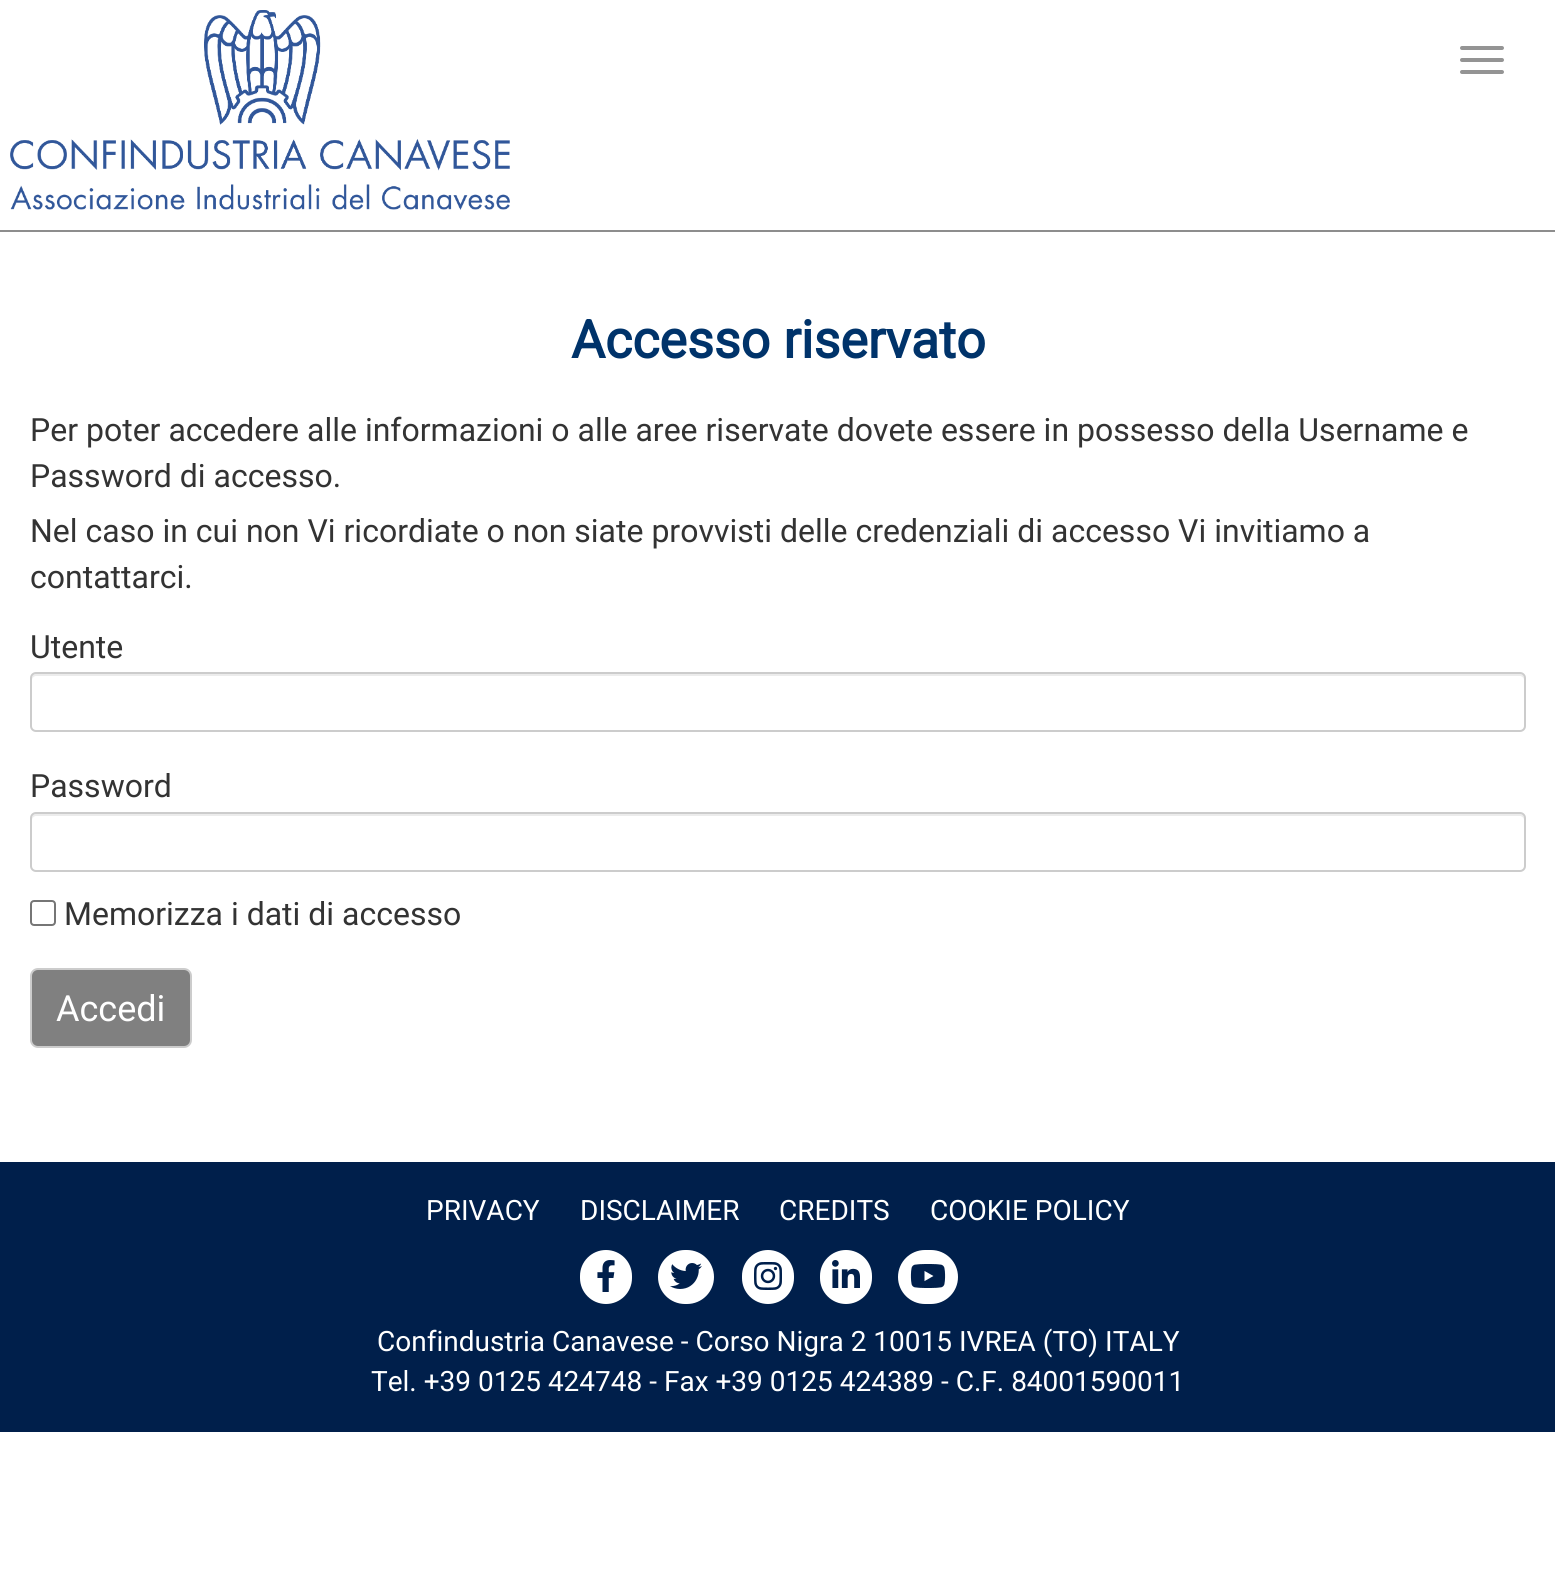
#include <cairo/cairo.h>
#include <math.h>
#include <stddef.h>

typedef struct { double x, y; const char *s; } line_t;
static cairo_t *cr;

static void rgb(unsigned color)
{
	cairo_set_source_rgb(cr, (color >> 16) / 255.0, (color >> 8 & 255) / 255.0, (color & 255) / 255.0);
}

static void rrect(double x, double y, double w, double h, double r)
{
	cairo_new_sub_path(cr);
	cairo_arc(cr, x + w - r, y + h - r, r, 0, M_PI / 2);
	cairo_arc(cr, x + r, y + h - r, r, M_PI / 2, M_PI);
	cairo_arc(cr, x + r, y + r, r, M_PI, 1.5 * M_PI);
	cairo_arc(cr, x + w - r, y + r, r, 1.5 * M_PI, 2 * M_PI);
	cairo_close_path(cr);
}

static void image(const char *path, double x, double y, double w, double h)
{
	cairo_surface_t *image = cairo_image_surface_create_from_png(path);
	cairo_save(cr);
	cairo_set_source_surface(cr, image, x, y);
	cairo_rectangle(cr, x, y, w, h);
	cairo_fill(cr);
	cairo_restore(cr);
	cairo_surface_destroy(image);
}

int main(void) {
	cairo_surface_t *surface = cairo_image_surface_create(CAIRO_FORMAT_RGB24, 1555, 1573);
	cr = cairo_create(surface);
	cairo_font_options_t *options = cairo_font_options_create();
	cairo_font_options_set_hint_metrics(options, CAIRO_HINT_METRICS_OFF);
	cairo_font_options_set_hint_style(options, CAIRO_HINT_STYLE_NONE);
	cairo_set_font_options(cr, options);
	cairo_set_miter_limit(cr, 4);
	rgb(0xffffff);
	cairo_paint(cr);
	rgb(0x8d8d8d);
	cairo_rectangle(cr, 0, 230, 1555, 2);
	cairo_fill(cr);
	image("img/1.png", 10, 10, 500, 200);
	rgb(0x949494);
	rrect(1460, 46, 44, 4, 2);
	cairo_fill(cr);
	rrect(1460, 58, 44, 4, 2);
	cairo_fill(cr);
	rrect(1460, 70, 44, 4, 2);
	cairo_fill(cr);
	rgb(0xececec);
	cairo_new_path(cr);
	cairo_move_to(cr, 36, 676);
	cairo_line_to(cr, 1520, 676);
	cairo_curve_to(cr, 1522, 676, 1524, 678, 1524, 680);
	cairo_curve_to(cr, 1524, 677, 1524, 674, 1520, 674);
	cairo_line_to(cr, 36, 674);
	cairo_curve_to(cr, 32, 674, 32, 677, 32, 680);
	cairo_curve_to(cr, 32, 678, 34, 676, 36, 676);
	cairo_close_path(cr);
	cairo_fill(cr);
	rrect(31, 673, 1494, 58, 5);
	rgb(0xcccccc);
	cairo_stroke(cr);
	rgb(0xececec);
	cairo_new_path(cr);
	cairo_move_to(cr, 36, 816);
	cairo_line_to(cr, 1520, 816);
	cairo_curve_to(cr, 1522, 816, 1524, 818, 1524, 820);
	cairo_curve_to(cr, 1524, 817, 1524, 814, 1520, 814);
	cairo_line_to(cr, 36, 814);
	cairo_curve_to(cr, 32, 814, 32, 817, 32, 820);
	cairo_curve_to(cr, 32, 818, 34, 816, 36, 816);
	cairo_close_path(cr);
	cairo_fill(cr);
	rrect(31, 813, 1494, 58, 5);
	rgb(0xcccccc);
	cairo_stroke(cr);
	rrect(31, 901, 24, 24, 3);
	rgb(0x767676);
	cairo_stroke(cr);
	rgb(0x808080);
	rrect(31, 969, 160, 78, 7);
	cairo_fill_preserve(cr);
	rgb(0xcccccc);
	cairo_stroke(cr);
	rgb(0x001f4b);
	cairo_rectangle(cr, 0, 1162, 1555, 270);
	cairo_fill(cr);
	rgb(0xffffff);
	rrect(580, 1250, 52, 54, 26);
	cairo_fill(cr);
	image("img/2.png", 597, 1260, 18, 32);
	rrect(658, 1250, 56, 54, 27);
	cairo_fill(cr);
	image("img/3.png", 670, 1263, 32, 26);
	rrect(742, 1250, 52, 54, 26);
	cairo_fill(cr);
	image("img/4.png", 754, 1262, 28, 28);
	rrect(820, 1250, 52, 54, 26);
	cairo_fill(cr);
	image("img/5.png", 832, 1260, 28, 28);
	rrect(898, 1250, 60, 54, 27);
	cairo_fill(cr);
	image("img/6.png", 910, 1264, 36, 24);
	cairo_select_font_face(cr, "Roboto", CAIRO_FONT_SLANT_NORMAL, CAIRO_FONT_WEIGHT_BOLD);
	cairo_set_font_size(cr, 52);
	rgb(0x00336a);
	cairo_move_to(cr, 571, 358);
	cairo_show_text(cr, "Accesso riservato");
	cairo_select_font_face(cr, "Roboto", CAIRO_FONT_SLANT_NORMAL, CAIRO_FONT_WEIGHT_NORMAL);
	cairo_set_font_size(cr, 32);
	rgb(0x333333);
	{
		static const line_t items[] = {
			{30, 441, "Per poter accedere alle informazioni o alle aree riservate dovete essere in possesso della Username e"},
			{30, 487, "Password di accesso."},
			{30, 542, "Nel caso in cui non Vi ricordiate o non siate provvisti delle credenziali di accesso Vi invitiamo a"},
			{30, 588, "contattarci."},
			{30, 658, "Utente"},
			{30, 797, "Password"},
			{64, 925, "Memorizza i dati di accesso"},
		};
		for (size_t i = 0; i < sizeof items / sizeof *items; i++) {
			cairo_move_to(cr, items[i].x, items[i].y);
			cairo_show_text(cr, items[i].s);
		}
	}
	cairo_set_font_size(cr, 36);
	rgb(0xffffff);
	cairo_move_to(cr, 56, 1021);
	cairo_show_text(cr, "Accedi");
	cairo_set_font_size(cr, 28);
	{
		static const line_t items[] = {
			{426, 1220, "PRIVACY"},
			{580, 1220, "DISCLAIMER"},
			{779, 1220, "CREDITS"},
			{930, 1220, "COOKIE POLICY"},
			{377, 1351, "Confindustria Canavese - Corso Nigra 2 10015 IVREA (TO) ITALY"},
			{371, 1391, "Tel. +39 0125 424748 - Fax +39 0125 424389 - C.F. 84001590011"},
		};
		for (size_t i = 0; i < sizeof items / sizeof *items; i++) {
			cairo_move_to(cr, items[i].x, items[i].y);
			cairo_show_text(cr, items[i].s);
		}
	}
	cairo_surface_write_to_png(surface, "page.png");
	cairo_font_options_destroy(options);
	cairo_destroy(cr);
	cairo_surface_destroy(surface);
	return 0;
}
